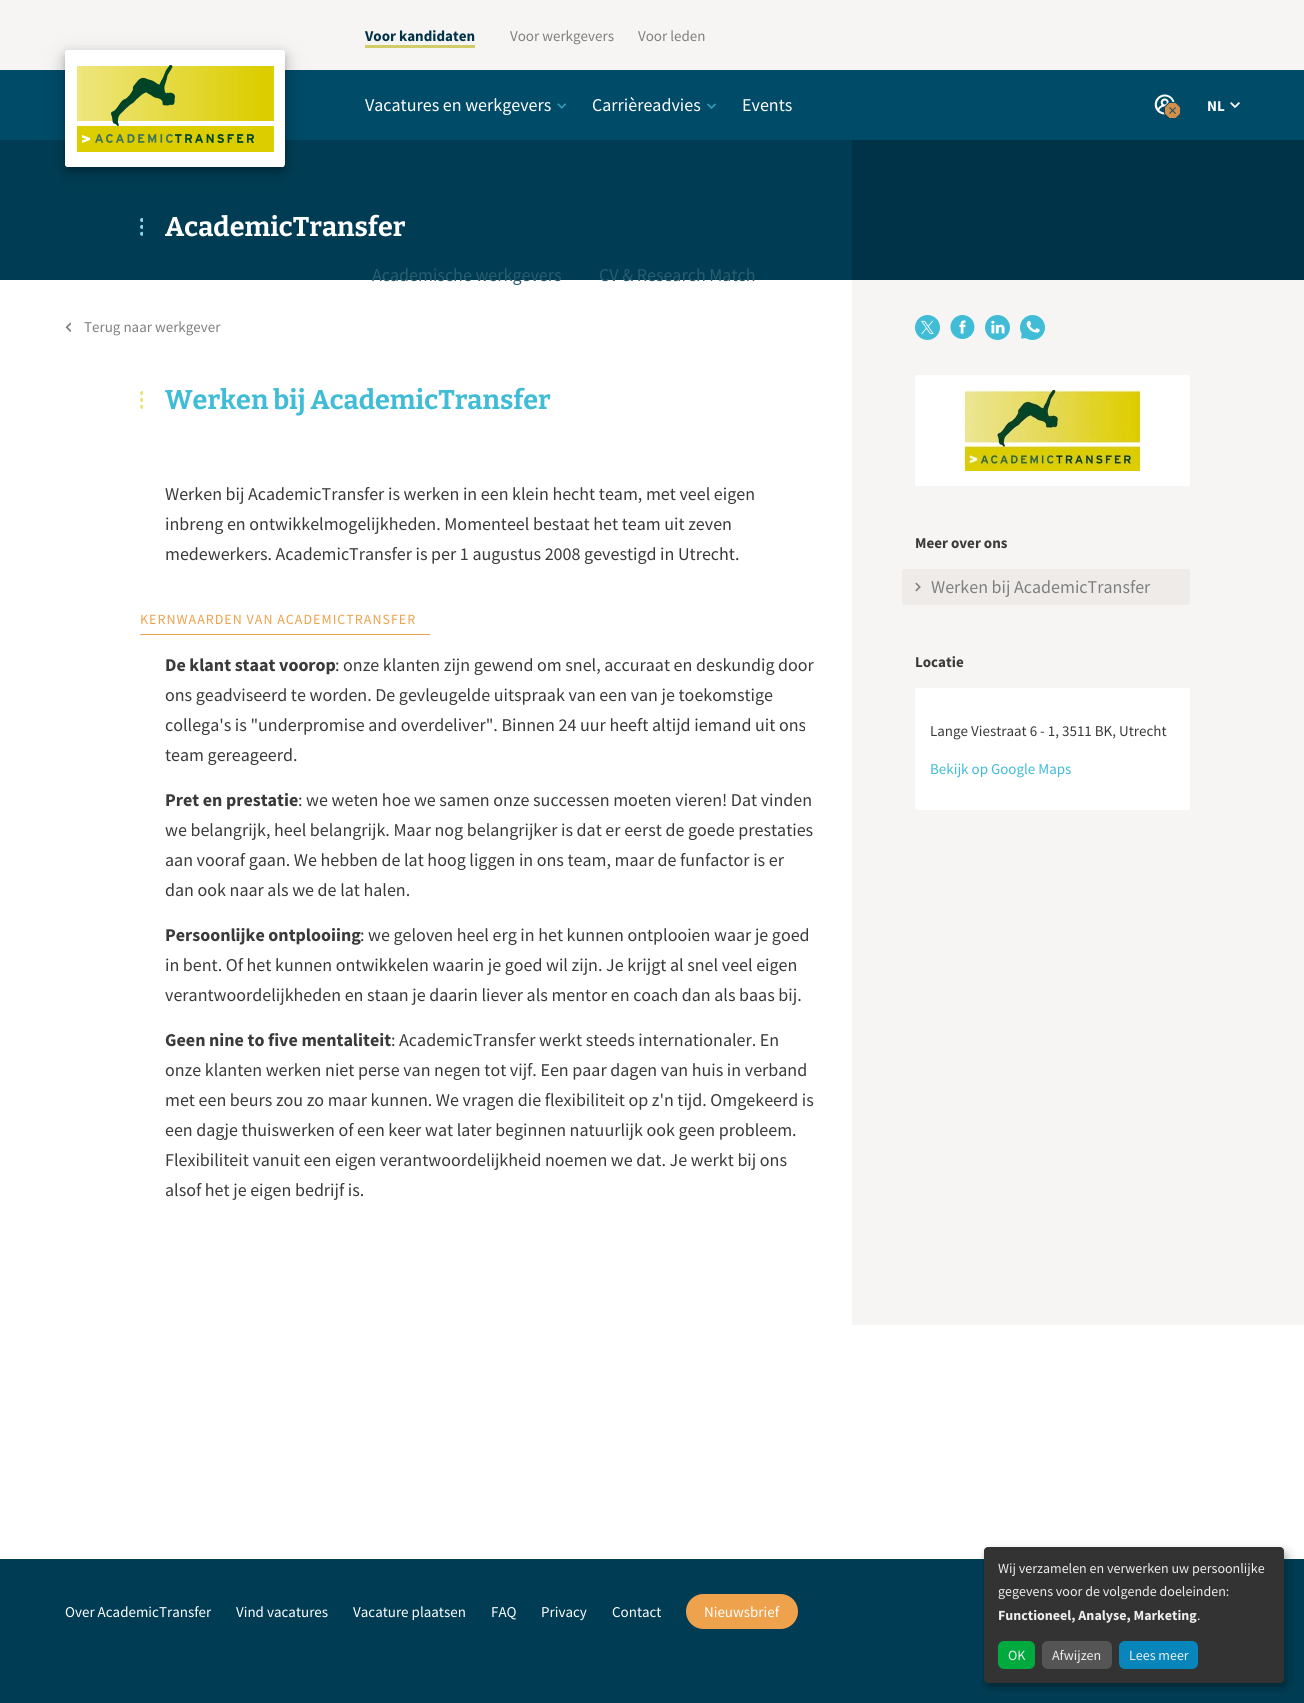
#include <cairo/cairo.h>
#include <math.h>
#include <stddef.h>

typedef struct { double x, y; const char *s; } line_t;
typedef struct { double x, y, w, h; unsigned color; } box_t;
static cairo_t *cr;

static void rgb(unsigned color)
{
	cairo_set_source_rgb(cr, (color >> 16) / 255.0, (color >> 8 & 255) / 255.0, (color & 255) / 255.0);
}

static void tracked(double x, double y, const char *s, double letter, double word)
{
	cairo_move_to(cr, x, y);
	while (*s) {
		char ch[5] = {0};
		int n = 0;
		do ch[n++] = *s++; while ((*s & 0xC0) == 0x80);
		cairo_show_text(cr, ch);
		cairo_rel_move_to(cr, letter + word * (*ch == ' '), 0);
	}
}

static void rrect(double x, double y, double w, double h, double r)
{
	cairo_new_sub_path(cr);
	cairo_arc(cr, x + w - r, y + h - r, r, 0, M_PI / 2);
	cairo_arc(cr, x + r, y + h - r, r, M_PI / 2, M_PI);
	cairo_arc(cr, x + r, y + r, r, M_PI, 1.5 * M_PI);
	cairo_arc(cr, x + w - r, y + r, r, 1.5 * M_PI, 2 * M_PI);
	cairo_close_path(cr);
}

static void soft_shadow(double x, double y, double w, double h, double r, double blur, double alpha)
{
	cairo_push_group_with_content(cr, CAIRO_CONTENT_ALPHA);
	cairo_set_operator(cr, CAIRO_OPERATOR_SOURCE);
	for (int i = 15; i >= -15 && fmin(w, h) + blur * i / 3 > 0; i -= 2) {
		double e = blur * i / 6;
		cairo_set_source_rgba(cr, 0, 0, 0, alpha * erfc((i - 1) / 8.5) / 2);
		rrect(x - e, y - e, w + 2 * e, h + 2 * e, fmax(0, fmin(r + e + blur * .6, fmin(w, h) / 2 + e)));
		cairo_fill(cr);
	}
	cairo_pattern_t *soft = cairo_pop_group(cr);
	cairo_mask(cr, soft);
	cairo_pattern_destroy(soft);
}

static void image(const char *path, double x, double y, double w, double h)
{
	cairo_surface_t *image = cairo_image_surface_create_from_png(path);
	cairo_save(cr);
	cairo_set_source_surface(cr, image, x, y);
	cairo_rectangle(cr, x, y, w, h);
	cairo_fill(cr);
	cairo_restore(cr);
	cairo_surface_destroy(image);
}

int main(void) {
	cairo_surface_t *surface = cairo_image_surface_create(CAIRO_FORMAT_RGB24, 1304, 1703);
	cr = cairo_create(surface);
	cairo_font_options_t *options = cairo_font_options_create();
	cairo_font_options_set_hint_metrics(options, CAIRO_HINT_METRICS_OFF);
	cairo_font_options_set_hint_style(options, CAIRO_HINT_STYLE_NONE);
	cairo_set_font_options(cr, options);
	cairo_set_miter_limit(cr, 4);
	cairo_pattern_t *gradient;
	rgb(0xffffff);
	cairo_paint(cr);
	{
		static const box_t items[] = {
			{0, 0, 1304, 70, 0xf6f5f4},
			{365, 45, 110, 3, 0xd0cd68},
			{0, 70, 1304, 70, 0x004b68},
			{0, 140, 852, 140, 0x003d54},
			{852, 140, 452, 140, 0x003348},
		};
		for (size_t i = 0; i < sizeof items / sizeof *items; i++) {
			rgb(items[i].color);
			cairo_rectangle(cr, items[i].x, items[i].y, items[i].w, items[i].h);
			cairo_fill(cr);
		}
	}
	cairo_save(cr);
	cairo_rectangle(cr, 140, 218, 3, 18);
	cairo_clip(cr);
	rgb(0x8ad4e4);
	cairo_arc(cr, 142, 220, 2, 0, 2 * M_PI);
	cairo_fill(cr);
	cairo_arc(cr, 142, 226.9, 2, 0, 2 * M_PI);
	cairo_fill(cr);
	cairo_arc(cr, 142, 233.8, 2, 0, 2 * M_PI);
	cairo_fill(cr);
	cairo_restore(cr);
	rgb(0x000000);
	soft_shadow(65, 56, 220, 117, 3, 10, 0.2);
	soft_shadow(65, 54, 220, 117, 3, 4, 0.2);
	rgb(0xffffff);
	rrect(65, 50, 220, 117, 3);
	cairo_fill(cr);
	image("img/1.png", 65, 50, 219, 117);
	image("img/2.png", 557, 103, 9, 6);
	image("img/3.png", 707, 103, 9, 6);
	image("img/4.png", 1154, 94, 26, 24);
	image("img/5.png", 1230, 102, 10, 6);
	rgb(0xf6f5f4);
	cairo_rectangle(cr, 852, 280, 452, 1045);
	cairo_fill(cr);
	image("img/6.png", 65, 322, 6, 10);
	cairo_save(cr);
	cairo_rectangle(cr, 140, 391, 3, 18);
	cairo_clip(cr);
	rgb(0xe8e574);
	cairo_arc(cr, 142, 393, 2, 0, 2 * M_PI);
	cairo_fill(cr);
	cairo_arc(cr, 142, 399.9, 2, 0, 2 * M_PI);
	cairo_fill(cr);
	cairo_arc(cr, 142, 406.8, 2, 0, 2 * M_PI);
	cairo_fill(cr);
	cairo_restore(cr);
	rgb(0xeea24c);
	cairo_rectangle(cr, 140, 634, 290, 1);
	cairo_fill(cr);
	gradient = cairo_pattern_create_radial(928, 328, 0, 928, 328, 13);
	cairo_pattern_add_color_stop_rgba(gradient, 0.9, 1, 1, 1, 1);
	cairo_pattern_add_color_stop_rgba(gradient, 0.9, 0.965, 0.961, 0.957, 1);
	cairo_set_source(cr, gradient);
	cairo_pattern_destroy(gradient);
	cairo_rectangle(cr, 916, 316, 24, 24);
	cairo_fill(cr);
	image("img/7.png", 915, 315, 25, 25);
	gradient = cairo_pattern_create_radial(963, 328, 0, 963, 328, 13);
	cairo_pattern_add_color_stop_rgba(gradient, 0.9, 1, 1, 1, 1);
	cairo_pattern_add_color_stop_rgba(gradient, 0.9, 0.965, 0.961, 0.957, 1);
	cairo_set_source(cr, gradient);
	cairo_pattern_destroy(gradient);
	cairo_rectangle(cr, 951, 316, 24, 24);
	cairo_fill(cr);
	image("img/8.png", 950, 315, 25, 24);
	gradient = cairo_pattern_create_radial(998, 328, 0, 998, 328, 13);
	cairo_pattern_add_color_stop_rgba(gradient, 0.9, 1, 1, 1, 1);
	cairo_pattern_add_color_stop_rgba(gradient, 0.9, 0.965, 0.961, 0.957, 1);
	cairo_set_source(cr, gradient);
	cairo_pattern_destroy(gradient);
	cairo_rectangle(cr, 986, 316, 24, 24);
	cairo_fill(cr);
	image("img/9.png", 985, 315, 25, 25);
	gradient = cairo_pattern_create_radial(1033, 328, 0, 1033, 328, 13);
	cairo_pattern_add_color_stop_rgba(gradient, 0.9, 1, 1, 1, 1);
	cairo_pattern_add_color_stop_rgba(gradient, 0.9, 0.965, 0.961, 0.957, 1);
	cairo_set_source(cr, gradient);
	cairo_pattern_destroy(gradient);
	cairo_rectangle(cr, 1021, 316, 24, 24);
	cairo_fill(cr);
	image("img/10.png", 1020, 315, 25, 25);
	rgb(0xffffff);
	rrect(915, 375, 275, 111, 2);
	cairo_fill(cr);
	image("img/11.png", 962, 390, 180, 81);
	rgb(0xeeebe9);
	rrect(902, 569, 288, 36, 3);
	cairo_fill(cr);
	image("img/12.png", 915, 582, 6, 10);
	rgb(0xffffff);
	rrect(915, 688, 275, 122, 2);
	cairo_fill(cr);
	rgb(0x003d54);
	cairo_rectangle(cr, 0, 1559, 1304, 144);
	cairo_fill(cr);
	rgb(0xeea24c);
	rrect(686, 1594, 112, 35, 17.5);
	cairo_fill(cr);
	rgb(0x000000);
	soft_shadow(989, 1552, 300, 136, 4, 5, 0.19);
	soft_shadow(984, 1551, 300, 136, 4, 3, 0.2);
	rgb(0x333333);
	rrect(984, 1547, 300, 136, 4);
	cairo_fill(cr);
	rgb(0x00aa3e);
	rrect(998, 1641, 37, 28, 6);
	cairo_fill(cr);
	rgb(0x555555);
	rrect(1042, 1641, 70, 28, 6);
	cairo_fill(cr);
	rgb(0x0885ba);
	rrect(1119, 1641, 79, 28, 6);
	cairo_fill(cr);
	cairo_select_font_face(cr, "Source Sans Pro", CAIRO_FONT_SLANT_NORMAL, CAIRO_FONT_WEIGHT_BOLD);
	cairo_set_font_size(cr, 15);
	rgb(0x003348);
	cairo_move_to(cr, 365, 41);
	cairo_show_text(cr, "Voor kandidaten");
	cairo_select_font_face(cr, "Source Sans Pro", CAIRO_FONT_SLANT_NORMAL, CAIRO_FONT_WEIGHT_NORMAL);
	rgb(0x7f7f7f);
	cairo_move_to(cr, 510, 41);
	cairo_show_text(cr, "Voor werkgevers");
	cairo_move_to(cr, 638, 41);
	cairo_show_text(cr, "Voor leden");
	cairo_select_font_face(cr, "Bitter", CAIRO_FONT_SLANT_NORMAL, CAIRO_FONT_WEIGHT_BOLD);
	cairo_set_font_size(cr, 27);
	rgb(0xffffff);
	cairo_move_to(cr, 165, 236);
	cairo_show_text(cr, "AcademicTransfer");
	cairo_select_font_face(cr, "Source Sans Pro", CAIRO_FONT_SLANT_NORMAL, CAIRO_FONT_WEIGHT_NORMAL);
	cairo_set_font_size(cr, 18);
	cairo_move_to(cr, 365, 111);
	cairo_show_text(cr, "Vacatures en werkgevers");
	rgb(0x295c6f);
	cairo_move_to(cr, 372, 281);
	cairo_show_text(cr, "Academische werkgevers");
	rgb(0xffffff);
	cairo_move_to(cr, 592, 111);
	cairo_show_text(cr, "Carrièreadvies");
	rgb(0x295c6f);
	cairo_move_to(cr, 599, 281);
	cairo_show_text(cr, "CV & Research Match");
	rgb(0xffffff);
	cairo_move_to(cr, 742, 111);
	cairo_show_text(cr, "Events");
	cairo_select_font_face(cr, "Source Sans Pro", CAIRO_FONT_SLANT_NORMAL, CAIRO_FONT_WEIGHT_BOLD);
	cairo_set_font_size(cr, 15);
	cairo_move_to(cr, 1207, 111);
	cairo_show_text(cr, "NL");
	cairo_select_font_face(cr, "Source Sans Pro", CAIRO_FONT_SLANT_NORMAL, CAIRO_FONT_WEIGHT_NORMAL);
	rgb(0x7f7f7f);
	cairo_move_to(cr, 84, 332);
	cairo_show_text(cr, "Terug naar werkgever");
	cairo_select_font_face(cr, "Bitter", CAIRO_FONT_SLANT_NORMAL, CAIRO_FONT_WEIGHT_BOLD);
	cairo_set_font_size(cr, 27);
	rgb(0x40bcd6);
	cairo_move_to(cr, 165, 409);
	cairo_show_text(cr, "Werken bij AcademicTransfer");
	cairo_select_font_face(cr, "Source Sans Pro", CAIRO_FONT_SLANT_NORMAL, CAIRO_FONT_WEIGHT_NORMAL);
	cairo_set_font_size(cr, 18);
	rgb(0x3b3a3a);
	{
		static const line_t items[] = {
			{165, 500, "Werken bij AcademicTransfer is werken in een klein hecht team, met veel eigen"},
			{165, 530, "inbreng en ontwikkelmogelijkheden. Momenteel bestaat het team uit zeven"},
			{165, 560, "medewerkers. AcademicTransfer is per 1 augustus 2008 gevestigd in Utrecht."},
		};
		for (size_t i = 0; i < sizeof items / sizeof *items; i++) {
			cairo_move_to(cr, items[i].x, items[i].y);
			cairo_show_text(cr, items[i].s);
		}
	}
	cairo_set_font_size(cr, 14);
	rgb(0xeea24c);
	tracked(140, 624, "KERNWAARDEN VAN ACADEMICTRANSFER", 1, 0);
	cairo_select_font_face(cr, "Source Sans Pro", CAIRO_FONT_SLANT_NORMAL, CAIRO_FONT_WEIGHT_BOLD);
	cairo_set_font_size(cr, 18);
	rgb(0x3b3a3a);
	cairo_move_to(cr, 165, 671);
	cairo_show_text(cr, "De klant staat voorop");
	cairo_select_font_face(cr, "Source Sans Pro", CAIRO_FONT_SLANT_NORMAL, CAIRO_FONT_WEIGHT_NORMAL);
	{
		static const line_t items[] = {
			{335, 671, ": onze klanten zijn gewend om snel, accuraat en deskundig door"},
			{165, 701, "ons geadviseerd te worden. De gevleugelde uitspraak van een van je toekomstige"},
			{165, 731, "collega's is \"underpromise and overdeliver\". Binnen 24 uur heeft altijd iemand uit ons"},
			{165, 761, "team gereageerd."},
		};
		for (size_t i = 0; i < sizeof items / sizeof *items; i++) {
			cairo_move_to(cr, items[i].x, items[i].y);
			cairo_show_text(cr, items[i].s);
		}
	}
	cairo_select_font_face(cr, "Source Sans Pro", CAIRO_FONT_SLANT_NORMAL, CAIRO_FONT_WEIGHT_BOLD);
	cairo_move_to(cr, 165, 806);
	cairo_show_text(cr, "Pret en prestatie");
	cairo_select_font_face(cr, "Source Sans Pro", CAIRO_FONT_SLANT_NORMAL, CAIRO_FONT_WEIGHT_NORMAL);
	{
		static const line_t items[] = {
			{298, 806, ": we weten hoe we samen onze successen moeten vieren! Dat vinden"},
			{165, 836, "we belangrijk, heel belangrijk. Maar nog belangrijker is dat er eerst de goede prestaties"},
			{165, 866, "aan vooraf gaan. We hebben de lat hoog liggen in ons team, maar de funfactor is er"},
			{165, 896, "dan ook naar als we de lat halen."},
		};
		for (size_t i = 0; i < sizeof items / sizeof *items; i++) {
			cairo_move_to(cr, items[i].x, items[i].y);
			cairo_show_text(cr, items[i].s);
		}
	}
	cairo_select_font_face(cr, "Source Sans Pro", CAIRO_FONT_SLANT_NORMAL, CAIRO_FONT_WEIGHT_BOLD);
	cairo_move_to(cr, 165, 941);
	cairo_show_text(cr, "Persoonlijke ontplooiing");
	cairo_select_font_face(cr, "Source Sans Pro", CAIRO_FONT_SLANT_NORMAL, CAIRO_FONT_WEIGHT_NORMAL);
	{
		static const line_t items[] = {
			{360, 941, ": we geloven heel erg in het kunnen ontplooien waar je goed"},
			{165, 971, "in bent. Of het kunnen ontwikkelen waarin je goed wil zijn. Je krijgt al snel veel eigen"},
			{165, 1001, "verantwoordelijkheden en staan je daarin liever als mentor en coach dan als baas bij."},
		};
		for (size_t i = 0; i < sizeof items / sizeof *items; i++) {
			cairo_move_to(cr, items[i].x, items[i].y);
			cairo_show_text(cr, items[i].s);
		}
	}
	cairo_select_font_face(cr, "Source Sans Pro", CAIRO_FONT_SLANT_NORMAL, CAIRO_FONT_WEIGHT_BOLD);
	cairo_move_to(cr, 165, 1046);
	cairo_show_text(cr, "Geen nine to five mentaliteit");
	cairo_select_font_face(cr, "Source Sans Pro", CAIRO_FONT_SLANT_NORMAL, CAIRO_FONT_WEIGHT_NORMAL);
	{
		static const line_t items[] = {
			{391, 1046, ": AcademicTransfer werkt steeds internationaler. En"},
			{165, 1076, "onze klanten werken niet perse van negen tot vijf. Een paar dagen van huis in verband"},
			{165, 1106, "met een beurs zou zo maar kunnen. We vragen die flexibiliteit op z'n tijd. Omgekeerd is"},
			{165, 1136, "een dagje thuiswerken of een keer wat later beginnen natuurlijk ook geen probleem."},
			{165, 1166, "Flexibiliteit vanuit een eigen verantwoordelijkheid noemen we dat. Je werkt bij ons"},
			{165, 1196, "alsof het je eigen bedrijf is."},
		};
		for (size_t i = 0; i < sizeof items / sizeof *items; i++) {
			cairo_move_to(cr, items[i].x, items[i].y);
			cairo_show_text(cr, items[i].s);
		}
	}
	cairo_select_font_face(cr, "Source Sans Pro", CAIRO_FONT_SLANT_NORMAL, CAIRO_FONT_WEIGHT_BOLD);
	cairo_set_font_size(cr, 15);
	cairo_move_to(cr, 915, 548);
	cairo_show_text(cr, "Meer over ons");
	cairo_select_font_face(cr, "Source Sans Pro", CAIRO_FONT_SLANT_NORMAL, CAIRO_FONT_WEIGHT_NORMAL);
	cairo_set_font_size(cr, 18);
	rgb(0x7f7f7f);
	cairo_move_to(cr, 931, 593);
	cairo_show_text(cr, "Werken bij AcademicTransfer");
	cairo_select_font_face(cr, "Source Sans Pro", CAIRO_FONT_SLANT_NORMAL, CAIRO_FONT_WEIGHT_BOLD);
	cairo_set_font_size(cr, 15);
	rgb(0x3b3a3a);
	cairo_move_to(cr, 915, 667);
	cairo_show_text(cr, "Locatie");
	cairo_select_font_face(cr, "Source Sans Pro", CAIRO_FONT_SLANT_NORMAL, CAIRO_FONT_WEIGHT_NORMAL);
	cairo_move_to(cr, 930, 736);
	cairo_show_text(cr, "Lange Viestraat 6 - 1, 3511 BK, Utrecht");
	rgb(0x40bcd6);
	cairo_move_to(cr, 930, 774);
	cairo_show_text(cr, "Bekijk op Google Maps");
	rgb(0xffffff);
	{
		static const line_t items[] = {
			{65, 1617, "Over AcademicTransfer"},
			{236, 1617, "Vind vacatures"},
			{353, 1617, "Vacature plaatsen"},
			{491, 1617, "FAQ"},
			{541, 1617, "Privacy"},
			{612, 1617, "Contact"},
			{704, 1617, "Nieuwsbrief"},
		};
		for (size_t i = 0; i < sizeof items / sizeof *items; i++) {
			cairo_move_to(cr, items[i].x, items[i].y);
			cairo_show_text(cr, items[i].s);
		}
	}
	cairo_set_font_size(cr, 14);
	rgb(0xeeeeee);
	cairo_move_to(cr, 998, 1573);
	cairo_show_text(cr, "Wij verzamelen en verwerken uw persoonlijke");
	cairo_move_to(cr, 998, 1596);
	cairo_show_text(cr, "gegevens voor de volgende doeleinden:");
	cairo_select_font_face(cr, "Source Sans Pro", CAIRO_FONT_SLANT_NORMAL, CAIRO_FONT_WEIGHT_BOLD);
	cairo_move_to(cr, 998, 1620);
	cairo_show_text(cr, "Functioneel, Analyse, Marketing");
	cairo_select_font_face(cr, "Source Sans Pro", CAIRO_FONT_SLANT_NORMAL, CAIRO_FONT_WEIGHT_NORMAL);
	{
		static const line_t items[] = {
			{1197, 1620, "."},
			{1008, 1660, "OK"},
			{1052, 1660, "Afwijzen"},
			{1129, 1660, "Lees meer"},
		};
		for (size_t i = 0; i < sizeof items / sizeof *items; i++) {
			cairo_move_to(cr, items[i].x, items[i].y);
			cairo_show_text(cr, items[i].s);
		}
	}
	cairo_surface_write_to_png(surface, "page.png");
	cairo_font_options_destroy(options);
	cairo_destroy(cr);
	cairo_surface_destroy(surface);
	return 0;
}
